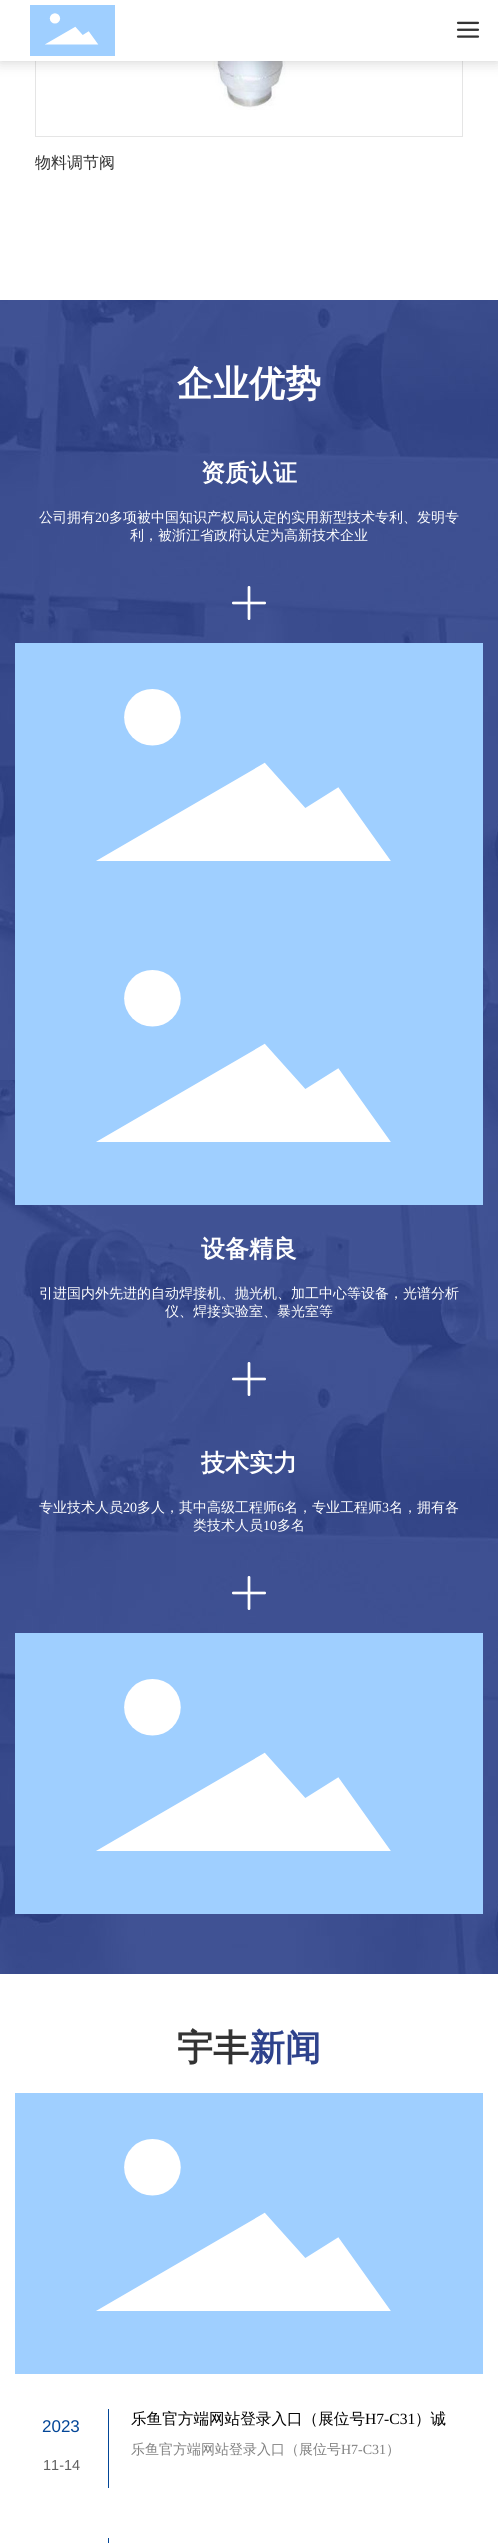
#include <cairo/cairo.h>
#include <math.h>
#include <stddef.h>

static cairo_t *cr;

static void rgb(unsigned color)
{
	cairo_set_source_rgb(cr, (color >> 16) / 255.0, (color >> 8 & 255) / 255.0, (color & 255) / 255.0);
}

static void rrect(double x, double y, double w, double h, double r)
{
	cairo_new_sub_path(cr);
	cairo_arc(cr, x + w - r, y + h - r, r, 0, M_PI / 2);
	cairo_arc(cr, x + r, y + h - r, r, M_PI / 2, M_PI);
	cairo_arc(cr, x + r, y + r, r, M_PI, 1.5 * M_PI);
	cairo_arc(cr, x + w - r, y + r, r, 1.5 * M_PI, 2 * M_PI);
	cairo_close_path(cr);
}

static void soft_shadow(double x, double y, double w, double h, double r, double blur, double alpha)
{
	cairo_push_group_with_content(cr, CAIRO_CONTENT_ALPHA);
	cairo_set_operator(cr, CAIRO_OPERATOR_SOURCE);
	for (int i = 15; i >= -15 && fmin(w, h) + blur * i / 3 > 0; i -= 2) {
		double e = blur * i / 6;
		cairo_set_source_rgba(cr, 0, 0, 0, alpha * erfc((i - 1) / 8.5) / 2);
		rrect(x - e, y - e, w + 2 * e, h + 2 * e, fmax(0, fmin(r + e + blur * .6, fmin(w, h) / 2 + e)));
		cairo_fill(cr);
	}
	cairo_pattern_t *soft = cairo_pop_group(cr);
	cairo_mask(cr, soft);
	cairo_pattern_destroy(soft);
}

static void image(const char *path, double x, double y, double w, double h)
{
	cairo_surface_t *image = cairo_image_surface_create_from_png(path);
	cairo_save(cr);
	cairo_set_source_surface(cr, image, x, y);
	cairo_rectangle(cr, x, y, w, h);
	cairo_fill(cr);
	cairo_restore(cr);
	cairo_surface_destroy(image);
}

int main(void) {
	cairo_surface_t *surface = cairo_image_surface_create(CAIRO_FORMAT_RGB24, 498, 2543);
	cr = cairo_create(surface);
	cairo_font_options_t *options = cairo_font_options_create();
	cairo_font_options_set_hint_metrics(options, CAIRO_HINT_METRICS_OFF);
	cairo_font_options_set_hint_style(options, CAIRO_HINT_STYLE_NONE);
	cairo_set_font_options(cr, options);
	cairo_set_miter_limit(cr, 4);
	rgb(0xffffff);
	cairo_paint(cr);
	cairo_rectangle(cr, 35.5, -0.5, 427, 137);
	rgb(0xe5e5e5);
	cairo_set_line_width(cr, 1);
	cairo_stroke(cr);
	image("img/3.png", 79, 61, 300, 49);
	rgb(0x000000);
	soft_shadow(0, 0, 498, 61, 0, 7.5, 0.2);
	rgb(0xffffff);
	cairo_rectangle(cr, 0, 0, 498, 61);
	cairo_fill(cr);
	image("img/1.png", 30, 5, 85, 51);
	image("img/2.png", 456, 21, 24, 17);
	image("img/4.png", 0, 300, 498, 1674);
	image("img/5.png", 232, 586, 34, 34);
	image("img/6.png", 15, 643, 468, 281);
	image("img/6.png", 15, 924, 468, 281);
	image("img/7.png", 232, 1362, 34, 34);
	image("img/8.png", 232, 1576, 34, 34);
	image("img/6.png", 15, 1633, 468, 281);
	image("img/9.png", 15, 2093, 468, 281);
	rgb(0x034697);
	cairo_rectangle(cr, 108, 2409, 1, 79);
	cairo_fill(cr);
	cairo_rectangle(cr, 108, 2538, 1, 5);
	cairo_fill(cr);
	cairo_select_font_face(cr, "WenQuanYi Zen Hei Medium", CAIRO_FONT_SLANT_NORMAL, CAIRO_FONT_WEIGHT_NORMAL);
	cairo_set_font_size(cr, 16);
	rgb(0x333333);
	cairo_move_to(cr, 35, 168);
	cairo_show_text(cr, "物料调节阀");
	cairo_select_font_face(cr, "WenQuanYi Zen Hei", CAIRO_FONT_SLANT_NORMAL, CAIRO_FONT_WEIGHT_BOLD);
	cairo_set_font_size(cr, 36);
	rgb(0xffffff);
	cairo_move_to(cr, 177, 396);
	cairo_show_text(cr, "企业优势");
	cairo_set_font_size(cr, 24);
	cairo_move_to(cr, 201, 481);
	cairo_show_text(cr, "资质认证");
	cairo_select_font_face(cr, "WenQuanYi Zen Hei Medium", CAIRO_FONT_SLANT_NORMAL, CAIRO_FONT_WEIGHT_NORMAL);
	cairo_set_font_size(cr, 14);
	cairo_move_to(cr, 39, 522);
	cairo_show_text(cr, "公司拥有");
	cairo_select_font_face(cr, "Liberation Serif", CAIRO_FONT_SLANT_NORMAL, CAIRO_FONT_WEIGHT_NORMAL);
	cairo_move_to(cr, 95, 522);
	cairo_show_text(cr, "20");
	cairo_select_font_face(cr, "WenQuanYi Zen Hei Medium", CAIRO_FONT_SLANT_NORMAL, CAIRO_FONT_WEIGHT_NORMAL);
	cairo_move_to(cr, 109, 522);
	cairo_show_text(cr, "多项被中国知识产权局认定的实用新型技术专利、发明专");
	cairo_move_to(cr, 130, 540);
	cairo_show_text(cr, "利，被浙江省政府认定为高新技术企业");
	cairo_select_font_face(cr, "WenQuanYi Zen Hei", CAIRO_FONT_SLANT_NORMAL, CAIRO_FONT_WEIGHT_BOLD);
	cairo_set_font_size(cr, 24);
	cairo_move_to(cr, 201, 1257);
	cairo_show_text(cr, "设备精良");
	cairo_select_font_face(cr, "WenQuanYi Zen Hei Medium", CAIRO_FONT_SLANT_NORMAL, CAIRO_FONT_WEIGHT_NORMAL);
	cairo_set_font_size(cr, 14);
	cairo_move_to(cr, 39, 1298);
	cairo_show_text(cr, "引进国内外先进的自动焊接机、抛光机、加工中心等设备，光谱分析");
	cairo_move_to(cr, 165, 1316);
	cairo_show_text(cr, "仪、焊接实验室、暴光室等");
	cairo_select_font_face(cr, "WenQuanYi Zen Hei", CAIRO_FONT_SLANT_NORMAL, CAIRO_FONT_WEIGHT_BOLD);
	cairo_set_font_size(cr, 24);
	cairo_move_to(cr, 201, 1471);
	cairo_show_text(cr, "技术实力");
	cairo_select_font_face(cr, "WenQuanYi Zen Hei Medium", CAIRO_FONT_SLANT_NORMAL, CAIRO_FONT_WEIGHT_NORMAL);
	cairo_set_font_size(cr, 14);
	cairo_move_to(cr, 39, 1512);
	cairo_show_text(cr, "专业技术人员");
	cairo_select_font_face(cr, "Liberation Serif", CAIRO_FONT_SLANT_NORMAL, CAIRO_FONT_WEIGHT_NORMAL);
	cairo_move_to(cr, 123, 1512);
	cairo_show_text(cr, "20");
	cairo_select_font_face(cr, "WenQuanYi Zen Hei Medium", CAIRO_FONT_SLANT_NORMAL, CAIRO_FONT_WEIGHT_NORMAL);
	cairo_move_to(cr, 137, 1512);
	cairo_show_text(cr, "多人，其中高级工程师");
	cairo_select_font_face(cr, "Liberation Serif", CAIRO_FONT_SLANT_NORMAL, CAIRO_FONT_WEIGHT_NORMAL);
	cairo_move_to(cr, 277, 1512);
	cairo_show_text(cr, "6");
	cairo_select_font_face(cr, "WenQuanYi Zen Hei Medium", CAIRO_FONT_SLANT_NORMAL, CAIRO_FONT_WEIGHT_NORMAL);
	cairo_move_to(cr, 284, 1512);
	cairo_show_text(cr, "名，专业工程师");
	cairo_select_font_face(cr, "Liberation Serif", CAIRO_FONT_SLANT_NORMAL, CAIRO_FONT_WEIGHT_NORMAL);
	cairo_move_to(cr, 382, 1512);
	cairo_show_text(cr, "3");
	cairo_select_font_face(cr, "WenQuanYi Zen Hei Medium", CAIRO_FONT_SLANT_NORMAL, CAIRO_FONT_WEIGHT_NORMAL);
	cairo_move_to(cr, 389, 1512);
	cairo_show_text(cr, "名，拥有各");
	cairo_move_to(cr, 193, 1530);
	cairo_show_text(cr, "类技术人员");
	cairo_select_font_face(cr, "Liberation Serif", CAIRO_FONT_SLANT_NORMAL, CAIRO_FONT_WEIGHT_NORMAL);
	cairo_move_to(cr, 263, 1530);
	cairo_show_text(cr, "10");
	cairo_select_font_face(cr, "WenQuanYi Zen Hei Medium", CAIRO_FONT_SLANT_NORMAL, CAIRO_FONT_WEIGHT_NORMAL);
	cairo_move_to(cr, 277, 1530);
	cairo_show_text(cr, "多名");
	cairo_select_font_face(cr, "WenQuanYi Zen Hei", CAIRO_FONT_SLANT_NORMAL, CAIRO_FONT_WEIGHT_BOLD);
	cairo_set_font_size(cr, 36);
	rgb(0x333333);
	cairo_move_to(cr, 177, 2060);
	cairo_show_text(cr, "宇丰");
	rgb(0x2e428c);
	cairo_move_to(cr, 249, 2060);
	cairo_show_text(cr, "新闻");
	cairo_select_font_face(cr, "Liberation Sans", CAIRO_FONT_SLANT_NORMAL, CAIRO_FONT_WEIGHT_NORMAL);
	cairo_set_font_size(cr, 17);
	rgb(0x034697);
	cairo_move_to(cr, 42, 2432);
	cairo_show_text(cr, "2023");
	cairo_set_font_size(cr, 14.5);
	rgb(0x606060);
	cairo_move_to(cr, 43, 2470);
	cairo_show_text(cr, "11-14");
	cairo_select_font_face(cr, "WenQuanYi Zen Hei Medium", CAIRO_FONT_SLANT_NORMAL, CAIRO_FONT_WEIGHT_NORMAL);
	cairo_set_font_size(cr, 15.6);
	rgb(0x000000);
	cairo_move_to(cr, 131, 2424);
	cairo_show_text(cr, "乐鱼官方端网站登录入口（展位号");
	cairo_select_font_face(cr, "Liberation Serif", CAIRO_FONT_SLANT_NORMAL, CAIRO_FONT_WEIGHT_NORMAL);
	cairo_move_to(cr, 365, 2424);
	cairo_show_text(cr, "H7-C31");
	cairo_select_font_face(cr, "WenQuanYi Zen Hei Medium", CAIRO_FONT_SLANT_NORMAL, CAIRO_FONT_WEIGHT_NORMAL);
	cairo_move_to(cr, 415, 2424);
	cairo_show_text(cr, "）诚");
	cairo_set_font_size(cr, 14);
	rgb(0x808080);
	cairo_move_to(cr, 131, 2454);
	cairo_show_text(cr, "乐鱼官方端网站登录入口（展位号");
	cairo_select_font_face(cr, "Liberation Serif", CAIRO_FONT_SLANT_NORMAL, CAIRO_FONT_WEIGHT_NORMAL);
	cairo_move_to(cr, 341, 2454);
	cairo_show_text(cr, "H7-C31");
	cairo_select_font_face(cr, "WenQuanYi Zen Hei Medium", CAIRO_FONT_SLANT_NORMAL, CAIRO_FONT_WEIGHT_NORMAL);
	cairo_move_to(cr, 386, 2454);
	cairo_show_text(cr, "）");
	cairo_surface_write_to_png(surface, "page.png");
	cairo_font_options_destroy(options);
	cairo_destroy(cr);
	cairo_surface_destroy(surface);
	return 0;
}
